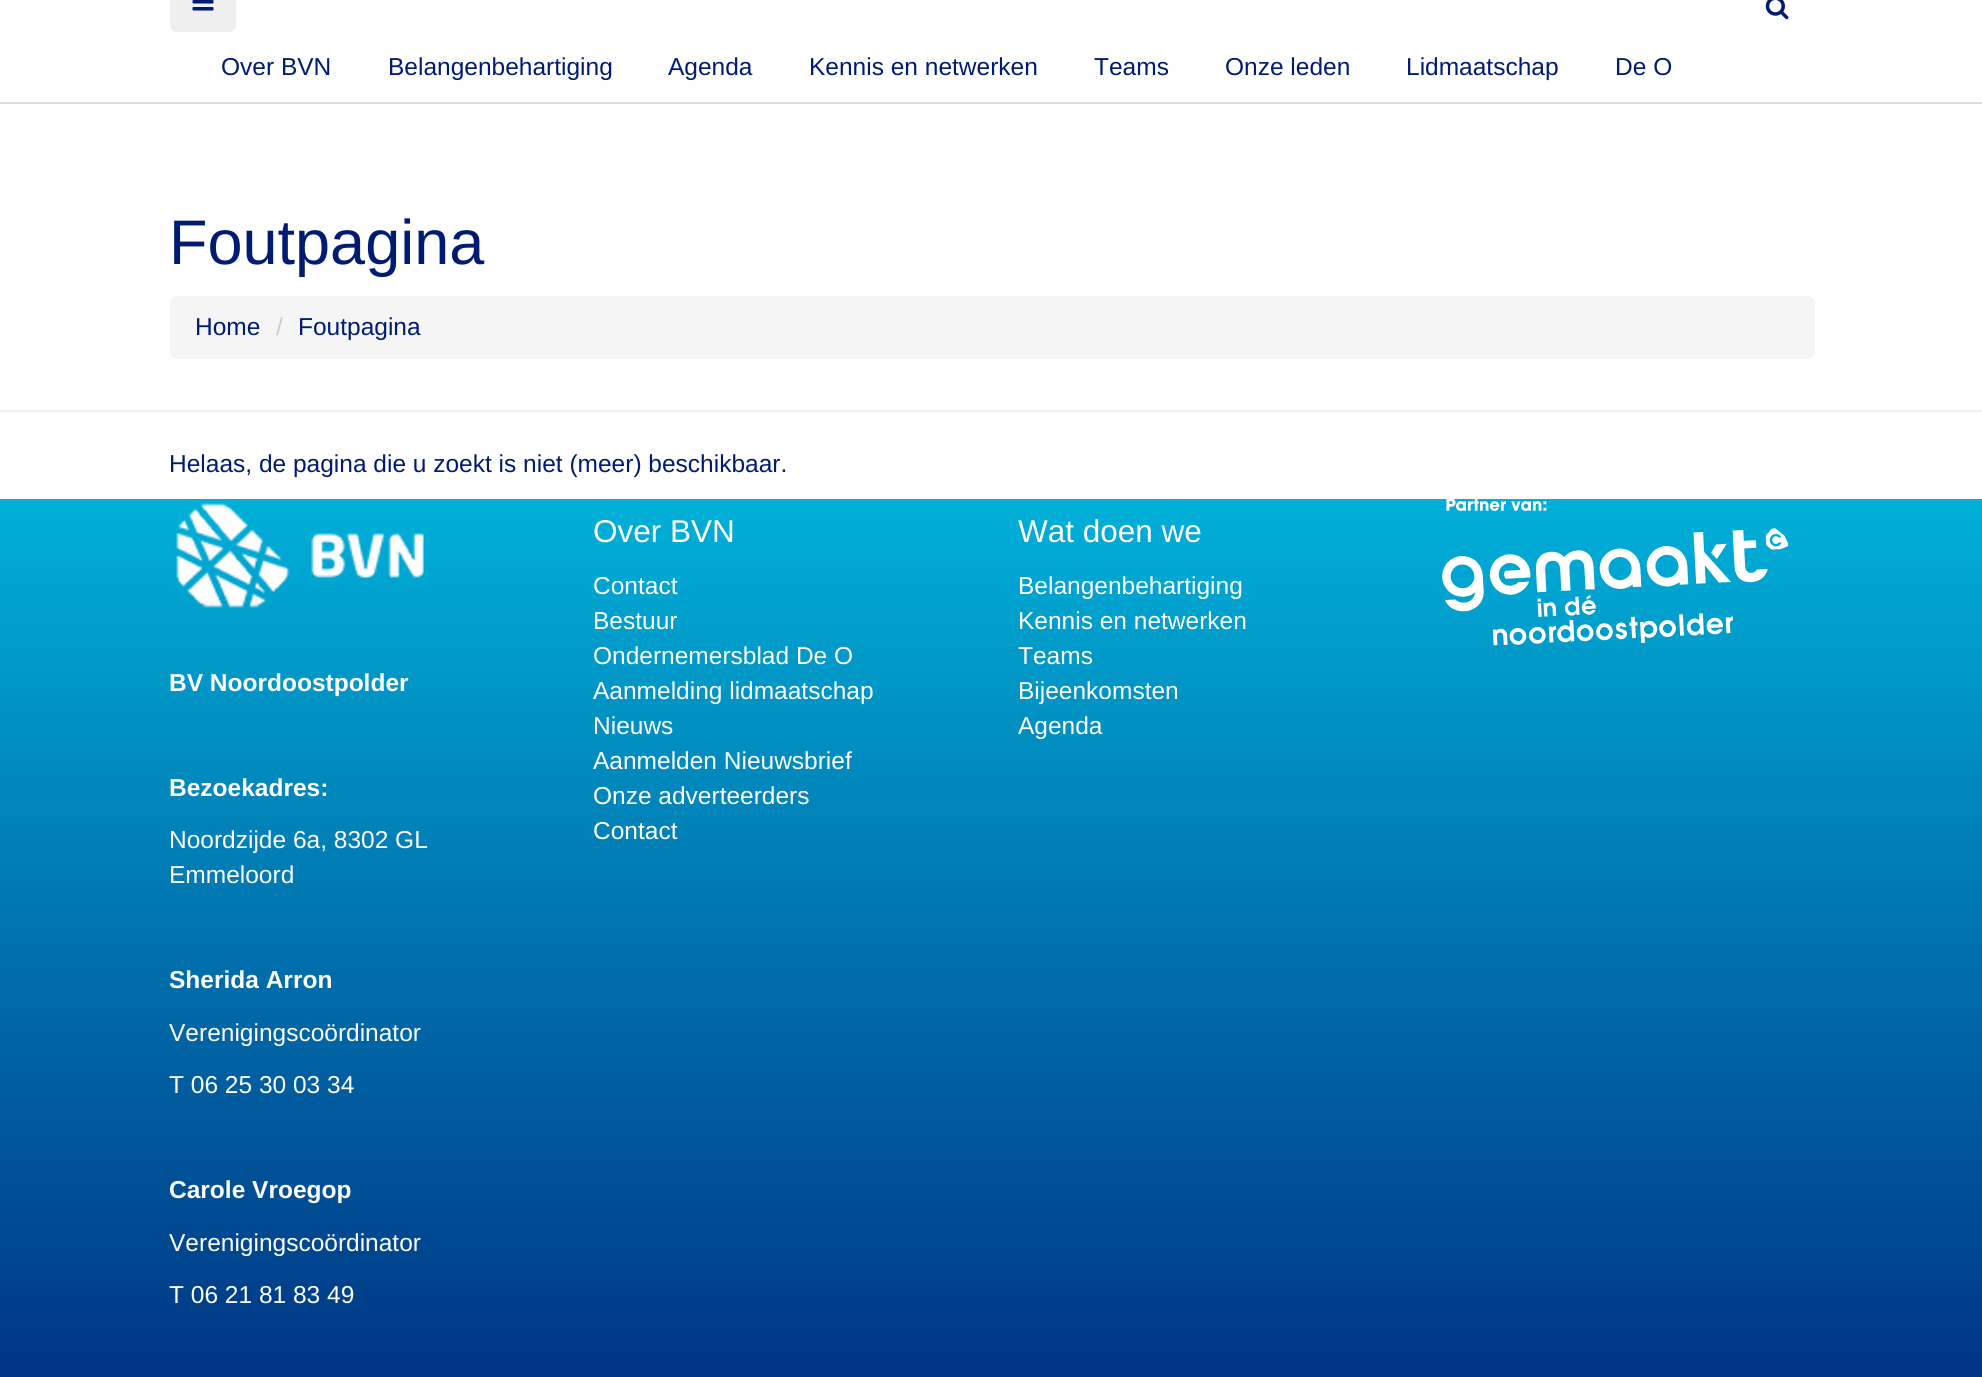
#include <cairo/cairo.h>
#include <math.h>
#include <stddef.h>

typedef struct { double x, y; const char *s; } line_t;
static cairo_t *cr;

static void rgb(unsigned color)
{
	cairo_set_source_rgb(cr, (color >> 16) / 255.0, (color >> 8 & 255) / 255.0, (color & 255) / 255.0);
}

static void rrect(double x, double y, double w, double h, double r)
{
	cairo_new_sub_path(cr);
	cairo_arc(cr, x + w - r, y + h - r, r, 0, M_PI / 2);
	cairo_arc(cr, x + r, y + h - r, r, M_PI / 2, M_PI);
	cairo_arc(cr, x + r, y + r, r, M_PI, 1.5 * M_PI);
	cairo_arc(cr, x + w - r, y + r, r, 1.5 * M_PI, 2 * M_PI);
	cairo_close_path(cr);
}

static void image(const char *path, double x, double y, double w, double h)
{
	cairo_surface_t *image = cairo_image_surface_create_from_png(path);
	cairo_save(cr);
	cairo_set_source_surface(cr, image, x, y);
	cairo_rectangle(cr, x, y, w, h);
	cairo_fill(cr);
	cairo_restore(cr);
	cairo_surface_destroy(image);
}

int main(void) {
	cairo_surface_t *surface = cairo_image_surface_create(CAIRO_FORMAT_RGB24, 1982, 1377);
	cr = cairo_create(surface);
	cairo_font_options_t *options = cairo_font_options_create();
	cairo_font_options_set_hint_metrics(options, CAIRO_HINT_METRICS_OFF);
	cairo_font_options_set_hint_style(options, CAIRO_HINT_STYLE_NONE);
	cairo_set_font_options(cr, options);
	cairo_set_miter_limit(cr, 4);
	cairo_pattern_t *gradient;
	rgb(0xffffff);
	cairo_paint(cr);
	rgb(0xefefef);
	rrect(170, -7, 66, 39, 7);
	cairo_fill(cr);
	image("img/1.png", 192, 0, 22, 11);
	image("img/2.png", 1765, 0, 24, 20);
	rgb(0xdddddd);
	cairo_rectangle(cr, 0, 102, 1982, 2);
	cairo_fill(cr);
	rgb(0xeeeeee);
	cairo_rectangle(cr, 0, 410, 1982, 2);
	cairo_fill(cr);
	rgb(0xf5f5f5);
	rrect(170, 296, 1645, 63, 7);
	cairo_fill(cr);
	gradient = cairo_pattern_create_linear(991, 499, 991, 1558);
	cairo_pattern_add_color_stop_rgba(gradient, 0, 0, 0.69, 0.847, 1);
	cairo_pattern_add_color_stop_rgba(gradient, 1, 0, 0.106, 0.447, 1);
	cairo_set_source(cr, gradient);
	cairo_pattern_destroy(gradient);
	cairo_rectangle(cr, 0, 499, 1982, 878);
	cairo_fill(cr);
	image("img/3.png", 176, 503, 248, 105);
	image("img/4.png", 1442, 499, 347, 147);
	cairo_select_font_face(cr, "Liberation Sans", CAIRO_FONT_SLANT_NORMAL, CAIRO_FONT_WEIGHT_NORMAL);
	cairo_set_font_size(cr, 24.5);
	rgb(0x001b72);
	{
		static const line_t items[] = {
			{221, 75, "Over BVN"},
			{388, 75, "Belangenbehartiging"},
			{668, 75, "Agenda"},
			{809, 75, "Kennis en netwerken"},
			{1094, 75, "Teams"},
			{1225, 75, "Onze leden"},
			{1406, 75, "Lidmaatschap"},
			{1615, 75, "De O"},
		};
		for (size_t i = 0; i < sizeof items / sizeof *items; i++) {
			cairo_move_to(cr, items[i].x, items[i].y);
			cairo_show_text(cr, items[i].s);
		}
	}
	cairo_set_font_size(cr, 63);
	cairo_move_to(cr, 169, 264);
	cairo_show_text(cr, "Foutpagina");
	cairo_set_font_size(cr, 24.5);
	cairo_move_to(cr, 195, 335);
	cairo_show_text(cr, "Home");
	rgb(0xcccccc);
	cairo_move_to(cr, 276, 335);
	cairo_show_text(cr, "/");
	rgb(0x001b72);
	cairo_move_to(cr, 298, 335);
	cairo_show_text(cr, "Foutpagina");
	cairo_move_to(cr, 169, 472);
	cairo_show_text(cr, "Helaas, de pagina die u zoekt is niet (meer) beschikbaar.");
	cairo_select_font_face(cr, "Liberation Sans", CAIRO_FONT_SLANT_NORMAL, CAIRO_FONT_WEIGHT_BOLD);
	rgb(0xffffff);
	cairo_move_to(cr, 169, 691);
	cairo_show_text(cr, "BV Noordoostpolder");
	cairo_move_to(cr, 169, 796);
	cairo_show_text(cr, "Bezoekadres:");
	cairo_select_font_face(cr, "Liberation Sans", CAIRO_FONT_SLANT_NORMAL, CAIRO_FONT_WEIGHT_NORMAL);
	cairo_move_to(cr, 169, 848);
	cairo_show_text(cr, "Noordzijde 6a, 8302 GL");
	cairo_move_to(cr, 169, 883);
	cairo_show_text(cr, "Emmeloord");
	cairo_select_font_face(cr, "Liberation Sans", CAIRO_FONT_SLANT_NORMAL, CAIRO_FONT_WEIGHT_BOLD);
	cairo_move_to(cr, 169, 988);
	cairo_show_text(cr, "Sherida Arron");
	cairo_select_font_face(cr, "Liberation Sans", CAIRO_FONT_SLANT_NORMAL, CAIRO_FONT_WEIGHT_NORMAL);
	cairo_move_to(cr, 169, 1041);
	cairo_show_text(cr, "Verenigingscoördinator");
	cairo_move_to(cr, 169, 1093);
	cairo_show_text(cr, "T 06 25 30 03 34");
	cairo_select_font_face(cr, "Liberation Sans", CAIRO_FONT_SLANT_NORMAL, CAIRO_FONT_WEIGHT_BOLD);
	cairo_move_to(cr, 169, 1198);
	cairo_show_text(cr, "Carole Vroegop");
	cairo_select_font_face(cr, "Liberation Sans", CAIRO_FONT_SLANT_NORMAL, CAIRO_FONT_WEIGHT_NORMAL);
	cairo_move_to(cr, 169, 1251);
	cairo_show_text(cr, "Verenigingscoördinator");
	cairo_move_to(cr, 169, 1303);
	cairo_show_text(cr, "T 06 21 81 83 49");
	cairo_set_font_size(cr, 31.5);
	cairo_move_to(cr, 593, 542);
	cairo_show_text(cr, "Over BVN");
	cairo_set_font_size(cr, 24.5);
	{
		static const line_t items[] = {
			{593, 594, "Contact"},
			{593, 629, "Bestuur"},
			{593, 664, "Ondernemersblad De O"},
			{593, 699, "Aanmelding lidmaatschap"},
			{593, 734, "Nieuws"},
			{593, 769, "Aanmelden Nieuwsbrief"},
			{593, 804, "Onze adverteerders"},
			{593, 839, "Contact"},
		};
		for (size_t i = 0; i < sizeof items / sizeof *items; i++) {
			cairo_move_to(cr, items[i].x, items[i].y);
			cairo_show_text(cr, items[i].s);
		}
	}
	cairo_set_font_size(cr, 31.5);
	cairo_move_to(cr, 1018, 542);
	cairo_show_text(cr, "Wat doen we");
	cairo_set_font_size(cr, 24.5);
	{
		static const line_t items[] = {
			{1018, 594, "Belangenbehartiging"},
			{1018, 629, "Kennis en netwerken"},
			{1018, 664, "Teams"},
			{1018, 699, "Bijeenkomsten"},
			{1018, 734, "Agenda"},
		};
		for (size_t i = 0; i < sizeof items / sizeof *items; i++) {
			cairo_move_to(cr, items[i].x, items[i].y);
			cairo_show_text(cr, items[i].s);
		}
	}
	cairo_surface_write_to_png(surface, "page.png");
	cairo_font_options_destroy(options);
	cairo_destroy(cr);
	cairo_surface_destroy(surface);
	return 0;
}
